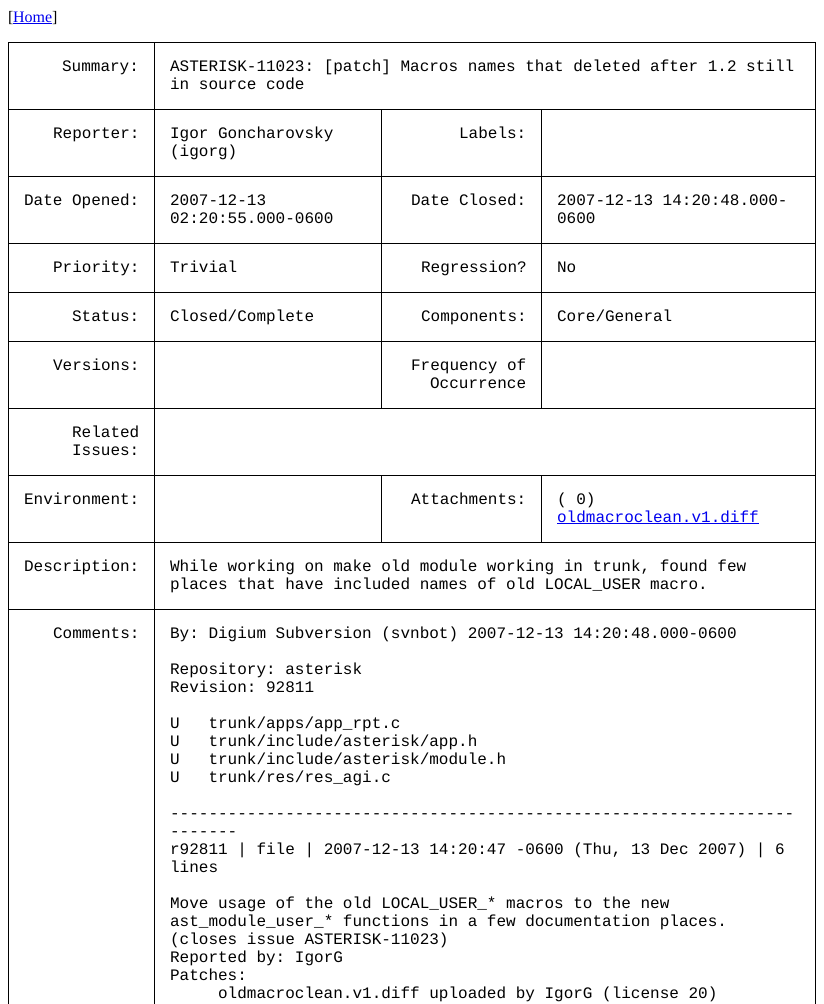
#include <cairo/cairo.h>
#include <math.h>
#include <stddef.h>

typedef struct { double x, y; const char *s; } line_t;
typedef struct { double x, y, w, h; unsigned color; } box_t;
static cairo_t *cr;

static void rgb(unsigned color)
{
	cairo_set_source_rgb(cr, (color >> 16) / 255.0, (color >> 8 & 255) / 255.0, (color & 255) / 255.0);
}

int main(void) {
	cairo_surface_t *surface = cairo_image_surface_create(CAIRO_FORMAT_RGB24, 824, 1004);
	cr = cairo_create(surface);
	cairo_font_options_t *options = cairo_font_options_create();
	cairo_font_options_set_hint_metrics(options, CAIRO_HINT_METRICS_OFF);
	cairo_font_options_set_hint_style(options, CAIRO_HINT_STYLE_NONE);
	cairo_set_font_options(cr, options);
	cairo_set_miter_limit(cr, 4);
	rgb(0xffffff);
	cairo_paint(cr);
	{
		static const box_t items[] = {
			{13, 23, 39, 1, 0x0000ee},
			{154, 42, 662, 1, 0x000000},
			{541, 109, 275, 1, 0x000000},
			{541, 176, 275, 1, 0x000000},
			{541, 243, 275, 1, 0x000000},
			{541, 292, 275, 1, 0x000000},
			{541, 341, 275, 1, 0x000000},
			{154, 408, 662, 1, 0x000000},
			{541, 341, 1, 68, 0x000000},
			{381, 341, 161, 1, 0x000000},
			{541, 292, 1, 50, 0x000000},
			{381, 292, 161, 1, 0x000000},
			{541, 243, 1, 50, 0x000000},
			{381, 243, 161, 1, 0x000000},
			{541, 176, 1, 68, 0x000000},
			{381, 176, 161, 1, 0x000000},
			{541, 109, 1, 68, 0x000000},
			{381, 109, 161, 1, 0x000000},
			{381, 341, 1, 68, 0x000000},
			{154, 341, 228, 1, 0x000000},
			{381, 292, 1, 50, 0x000000},
			{154, 292, 228, 1, 0x000000},
			{381, 243, 1, 50, 0x000000},
			{154, 243, 228, 1, 0x000000},
			{381, 176, 1, 68, 0x000000},
			{154, 176, 228, 1, 0x000000},
			{381, 109, 1, 68, 0x000000},
			{154, 109, 228, 1, 0x000000},
			{541, 475, 275, 1, 0x000000},
			{154, 542, 662, 1, 0x000000},
			{541, 475, 1, 68, 0x000000},
			{381, 475, 161, 1, 0x000000},
			{381, 475, 1, 68, 0x000000},
			{154, 475, 228, 1, 0x000000},
			{154, 609, 662, 1, 0x000000},
			{154, 609, 1, 395, 0x000000},
			{8, 609, 147, 1, 0x000000},
			{154, 542, 1, 68, 0x000000},
			{8, 542, 147, 1, 0x000000},
			{154, 475, 1, 68, 0x000000},
			{8, 475, 147, 1, 0x000000},
			{154, 408, 1, 68, 0x000000},
			{8, 408, 147, 1, 0x000000},
			{154, 341, 1, 68, 0x000000},
			{8, 341, 147, 1, 0x000000},
			{154, 292, 1, 50, 0x000000},
			{8, 292, 147, 1, 0x000000},
			{154, 243, 1, 50, 0x000000},
			{8, 243, 147, 1, 0x000000},
			{154, 176, 1, 68, 0x000000},
			{8, 176, 147, 1, 0x000000},
			{154, 109, 1, 68, 0x000000},
			{8, 109, 147, 1, 0x000000},
			{154, 42, 1, 68, 0x000000},
			{8, 42, 147, 1, 0x000000},
			{8, 609, 1, 395, 0x000000},
			{8, 542, 1, 68, 0x000000},
			{8, 475, 1, 68, 0x000000},
			{8, 408, 1, 68, 0x000000},
			{8, 341, 1, 68, 0x000000},
			{8, 292, 1, 50, 0x000000},
			{8, 243, 1, 50, 0x000000},
			{8, 176, 1, 68, 0x000000},
			{8, 109, 1, 68, 0x000000},
			{8, 42, 1, 68, 0x000000},
			{815, 609, 1, 395, 0x000000},
			{815, 542, 1, 68, 0x000000},
			{815, 475, 1, 68, 0x000000},
			{815, 408, 1, 68, 0x000000},
			{815, 341, 1, 68, 0x000000},
			{815, 292, 1, 50, 0x000000},
			{815, 243, 1, 50, 0x000000},
			{815, 176, 1, 68, 0x000000},
			{815, 109, 1, 68, 0x000000},
			{815, 42, 1, 68, 0x000000},
			{557, 523, 202, 1, 0x0000ee},
		};
		for (size_t i = 0; i < sizeof items / sizeof *items; i++) {
			rgb(items[i].color);
			cairo_rectangle(cr, items[i].x, items[i].y, items[i].w, items[i].h);
			cairo_fill(cr);
		}
	}
	cairo_select_font_face(cr, "Liberation Serif", CAIRO_FONT_SLANT_NORMAL, CAIRO_FONT_WEIGHT_NORMAL);
	cairo_set_font_size(cr, 16);
	rgb(0x000000);
	cairo_move_to(cr, 8, 22);
	cairo_show_text(cr, "[");
	rgb(0x0000ee);
	cairo_move_to(cr, 13, 22);
	cairo_show_text(cr, "Home");
	rgb(0x000000);
	cairo_move_to(cr, 52, 22);
	cairo_show_text(cr, "]");
	cairo_select_font_face(cr, "Liberation Mono", CAIRO_FONT_SLANT_NORMAL, CAIRO_FONT_WEIGHT_NORMAL);
	{
		static const line_t items[] = {
			{62, 71, "Summary:"},
			{170, 71, "ASTERISK-11023: [patch] Macros names that deleted after 1.2 still"},
			{170, 89, "in source code"},
			{53, 138, "Reporter:"},
			{170, 138, "Igor Goncharovsky"},
			{170, 156, "(igorg)"},
			{459, 138, "Labels:"},
			{24, 205, "Date Opened:"},
			{170, 205, "2007-12-13"},
			{170, 223, "02:20:55.000-0600"},
			{411, 205, "Date Closed:"},
			{557, 205, "2007-12-13 14:20:48.000-"},
			{557, 223, "0600"},
			{53, 272, "Priority:"},
			{170, 272, "Trivial"},
			{421, 272, "Regression?"},
			{557, 272, "No"},
			{72, 321, "Status:"},
			{170, 321, "Closed/Complete"},
			{421, 321, "Components:"},
			{557, 321, "Core/General"},
			{53, 370, "Versions:"},
			{411, 370, "Frequency of"},
			{430, 388, "Occurrence"},
			{72, 437, "Related"},
			{72, 455, "Issues:"},
			{24, 504, "Environment:"},
			{411, 504, "Attachments:"},
			{557, 504, "( 0)"},
		};
		for (size_t i = 0; i < sizeof items / sizeof *items; i++) {
			cairo_move_to(cr, items[i].x, items[i].y);
			cairo_show_text(cr, items[i].s);
		}
	}
	rgb(0x0000ee);
	cairo_move_to(cr, 557, 522);
	cairo_show_text(cr, "oldmacroclean.v1.diff");
	rgb(0x000000);
	{
		static const line_t items[] = {
			{24, 571, "Description:"},
			{170, 571, "While working on make old module working in trunk, found few"},
			{170, 589, "places that have included names of old LOCAL_USER macro."},
			{53, 638, "Comments:"},
			{170, 638, "By: Digium Subversion (svnbot) 2007-12-13 14:20:48.000-0600"},
			{170, 674, "Repository: asterisk"},
			{170, 692, "Revision: 92811"},
			{170, 728, "U   trunk/apps/app_rpt.c"},
			{170, 746, "U   trunk/include/asterisk/app.h"},
			{170, 764, "U   trunk/include/asterisk/module.h"},
			{170, 782, "U   trunk/res/res_agi.c"},
			{170, 818, "-----------------------------------------------------------------"},
			{170, 836, "-------"},
			{170, 854, "r92811 | file | 2007-12-13 14:20:47 -0600 (Thu, 13 Dec 2007) | 6"},
			{170, 872, "lines"},
			{170, 908, "Move usage of the old LOCAL_USER_* macros to the new"},
			{170, 926, "ast_module_user_* functions in a few documentation places."},
			{170, 944, "(closes issue ASTERISK-11023)"},
			{170, 962, "Reported by: IgorG"},
			{170, 980, "Patches:"},
			{218, 998, "oldmacroclean.v1.diff uploaded by IgorG (license 20)"},
		};
		for (size_t i = 0; i < sizeof items / sizeof *items; i++) {
			cairo_move_to(cr, items[i].x, items[i].y);
			cairo_show_text(cr, items[i].s);
		}
	}
	cairo_surface_write_to_png(surface, "page.png");
	cairo_font_options_destroy(options);
	cairo_destroy(cr);
	cairo_surface_destroy(surface);
	return 0;
}
